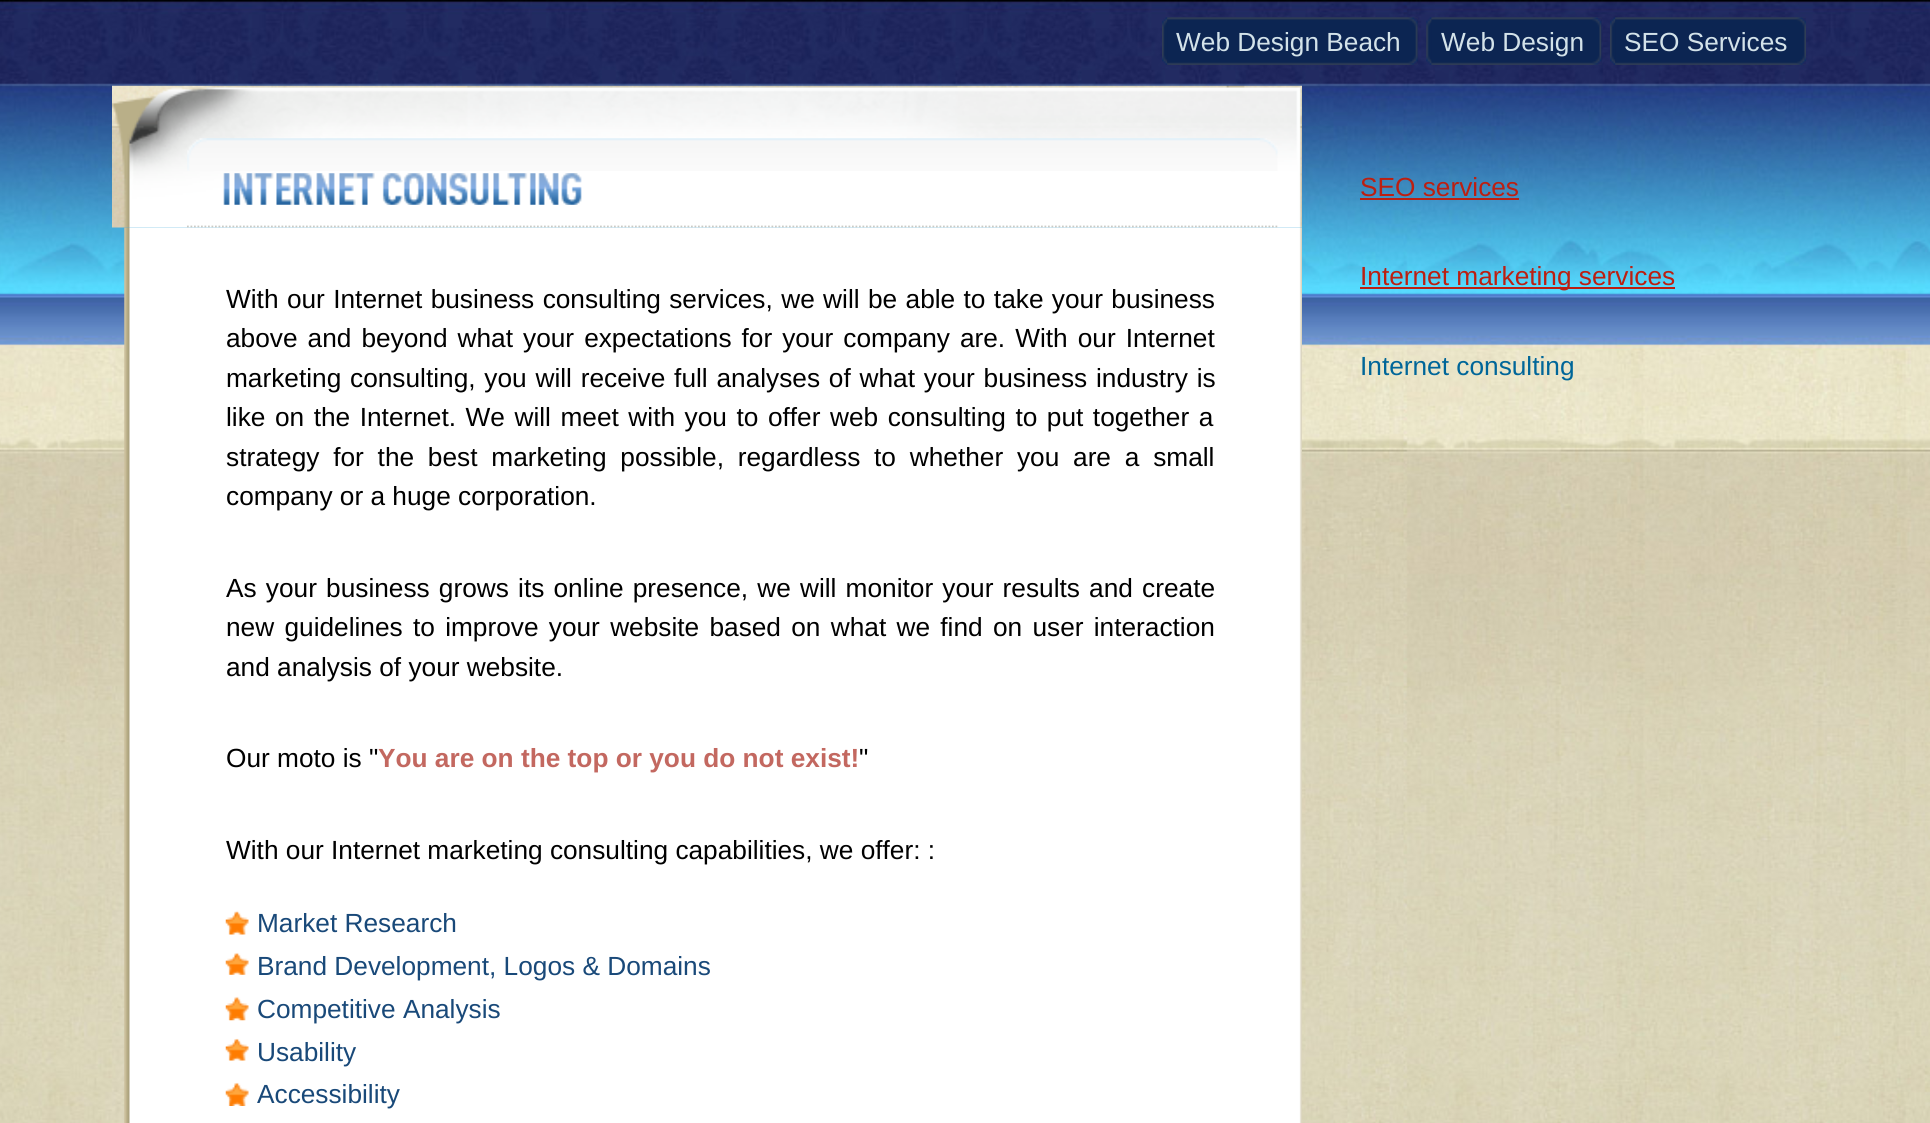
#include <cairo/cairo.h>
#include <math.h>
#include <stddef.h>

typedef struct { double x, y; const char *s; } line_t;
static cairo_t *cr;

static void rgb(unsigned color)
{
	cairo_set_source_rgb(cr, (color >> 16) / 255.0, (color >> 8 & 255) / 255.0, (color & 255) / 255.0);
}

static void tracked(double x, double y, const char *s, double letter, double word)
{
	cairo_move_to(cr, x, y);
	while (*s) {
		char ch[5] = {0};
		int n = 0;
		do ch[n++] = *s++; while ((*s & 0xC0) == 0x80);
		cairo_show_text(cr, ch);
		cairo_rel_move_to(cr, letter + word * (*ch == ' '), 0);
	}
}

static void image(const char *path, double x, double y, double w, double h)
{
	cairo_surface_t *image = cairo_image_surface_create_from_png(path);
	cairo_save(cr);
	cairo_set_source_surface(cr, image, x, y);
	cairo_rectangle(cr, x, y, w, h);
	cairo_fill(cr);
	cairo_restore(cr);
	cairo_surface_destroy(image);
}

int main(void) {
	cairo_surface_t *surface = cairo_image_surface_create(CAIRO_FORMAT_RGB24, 1930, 1123);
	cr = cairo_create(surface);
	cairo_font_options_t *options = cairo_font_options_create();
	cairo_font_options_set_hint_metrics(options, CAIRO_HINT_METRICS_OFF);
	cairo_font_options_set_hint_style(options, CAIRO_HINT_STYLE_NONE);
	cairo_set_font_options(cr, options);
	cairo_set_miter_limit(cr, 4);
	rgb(0xffffff);
	cairo_paint(cr);
	image("img/1.png", 0, 0, 1930, 1123);
	image("img/2.png", 1162, 17, 256, 48);
	image("img/3.png", 1167, 17, 251, 48);
	image("img/4.png", 1426, 17, 176, 48);
	image("img/5.png", 1431, 17, 171, 48);
	image("img/6.png", 1610, 17, 196, 48);
	image("img/7.png", 1615, 17, 191, 48);
	image("img/11.png", 124, 227, 1178, 896);
	image("img/8.png", 112, 85, 1190, 143);
	image("img/9.png", 187, 138, 1091, 33);
	cairo_new_path(cr);
	cairo_move_to(cr, 187, 226.5);
	cairo_line_to(cr, 1277.5, 226.5);
	rgb(0xcacbc6);
	cairo_set_line_width(cr, 1.8);
	cairo_set_dash(cr, (double[]){1.75, 1.75}, 2, 0);
	cairo_stroke(cr);
	image("img/10.png", 223, 173, 359, 32);
	image("img/12.png", 225, 910, 24, 25);
	image("img/13.png", 225, 952, 24, 23);
	image("img/14.png", 225, 996, 24, 25);
	image("img/15.png", 225, 1038, 24, 23);
	image("img/16.png", 225, 1082, 24, 24);
	rgb(0xbc1f11);
	cairo_rectangle(cr, 1360, 198, 159, 2);
	cairo_fill(cr);
	cairo_rectangle(cr, 1360, 287, 315, 2);
	cairo_fill(cr);
	cairo_select_font_face(cr, "Liberation Sans", CAIRO_FONT_SLANT_NORMAL, CAIRO_FONT_WEIGHT_NORMAL);
	cairo_set_font_size(cr, 26.25);
	rgb(0xd3e2e9);
	{
		static const line_t items[] = {
			{1176, 51, "Web Design Beach"},
			{1441, 51, "Web Design"},
			{1624, 51, "SEO Services"},
		};
		for (size_t i = 0; i < sizeof items / sizeof *items; i++) {
			cairo_move_to(cr, items[i].x, items[i].y);
			cairo_show_text(cr, items[i].s);
		}
	}
	rgb(0x000000);
	tracked(226, 308, "With our Internet business consulting services, we will be able to take your business", 0, 1.1);
	tracked(226, 347, "above and beyond what your expectations for your company are. With our Internet", 0, 2.75);
	tracked(226, 387, "marketing consulting, you will receive full analyses of what your business industry is", 0, 1.5);
	tracked(226, 426, "like on the Internet. We will meet with you to offer web consulting to put together a", 0, 2.25);
	tracked(226, 466, "strategy for the best marketing possible, regardless to whether you are a small", 0, 6.5);
	cairo_move_to(cr, 226, 505);
	cairo_show_text(cr, "company or a huge corporation.");
	tracked(226, 597, "As your business grows its online presence, we will monitor your results and create", 0, 1.9);
	tracked(226, 636, "new guidelines to improve your website based on what we find on user interaction", 0, 3);
	cairo_move_to(cr, 226, 676);
	cairo_show_text(cr, "and analysis of your website.");
	cairo_move_to(cr, 226, 767);
	cairo_show_text(cr, "Our moto is \"");
	cairo_select_font_face(cr, "Liberation Sans", CAIRO_FONT_SLANT_NORMAL, CAIRO_FONT_WEIGHT_BOLD);
	rgb(0xc36860);
	cairo_move_to(cr, 378, 767);
	cairo_show_text(cr, "You are on the top or you do not exist!");
	cairo_select_font_face(cr, "Liberation Sans", CAIRO_FONT_SLANT_NORMAL, CAIRO_FONT_WEIGHT_NORMAL);
	rgb(0x000000);
	cairo_move_to(cr, 859, 767);
	cairo_show_text(cr, "\"");
	cairo_move_to(cr, 226, 859);
	cairo_show_text(cr, "With our Internet marketing consulting capabilities, we offer: :");
	rgb(0x194979);
	{
		static const line_t items[] = {
			{257, 932, "Market Research"},
			{257, 975, "Brand Development, Logos & Domains"},
			{257, 1018, "Competitive Analysis"},
			{257, 1061, "Usability"},
			{257, 1103, "Accessibility"},
		};
		for (size_t i = 0; i < sizeof items / sizeof *items; i++) {
			cairo_move_to(cr, items[i].x, items[i].y);
			cairo_show_text(cr, items[i].s);
		}
	}
	rgb(0xbc1f11);
	cairo_move_to(cr, 1360, 196);
	cairo_show_text(cr, "SEO services");
	cairo_move_to(cr, 1360, 285);
	cairo_show_text(cr, "Internet marketing services");
	rgb(0x006699);
	cairo_move_to(cr, 1360, 375);
	cairo_show_text(cr, "Internet consulting");
	cairo_surface_write_to_png(surface, "page.png");
	cairo_font_options_destroy(options);
	cairo_destroy(cr);
	cairo_surface_destroy(surface);
	return 0;
}
